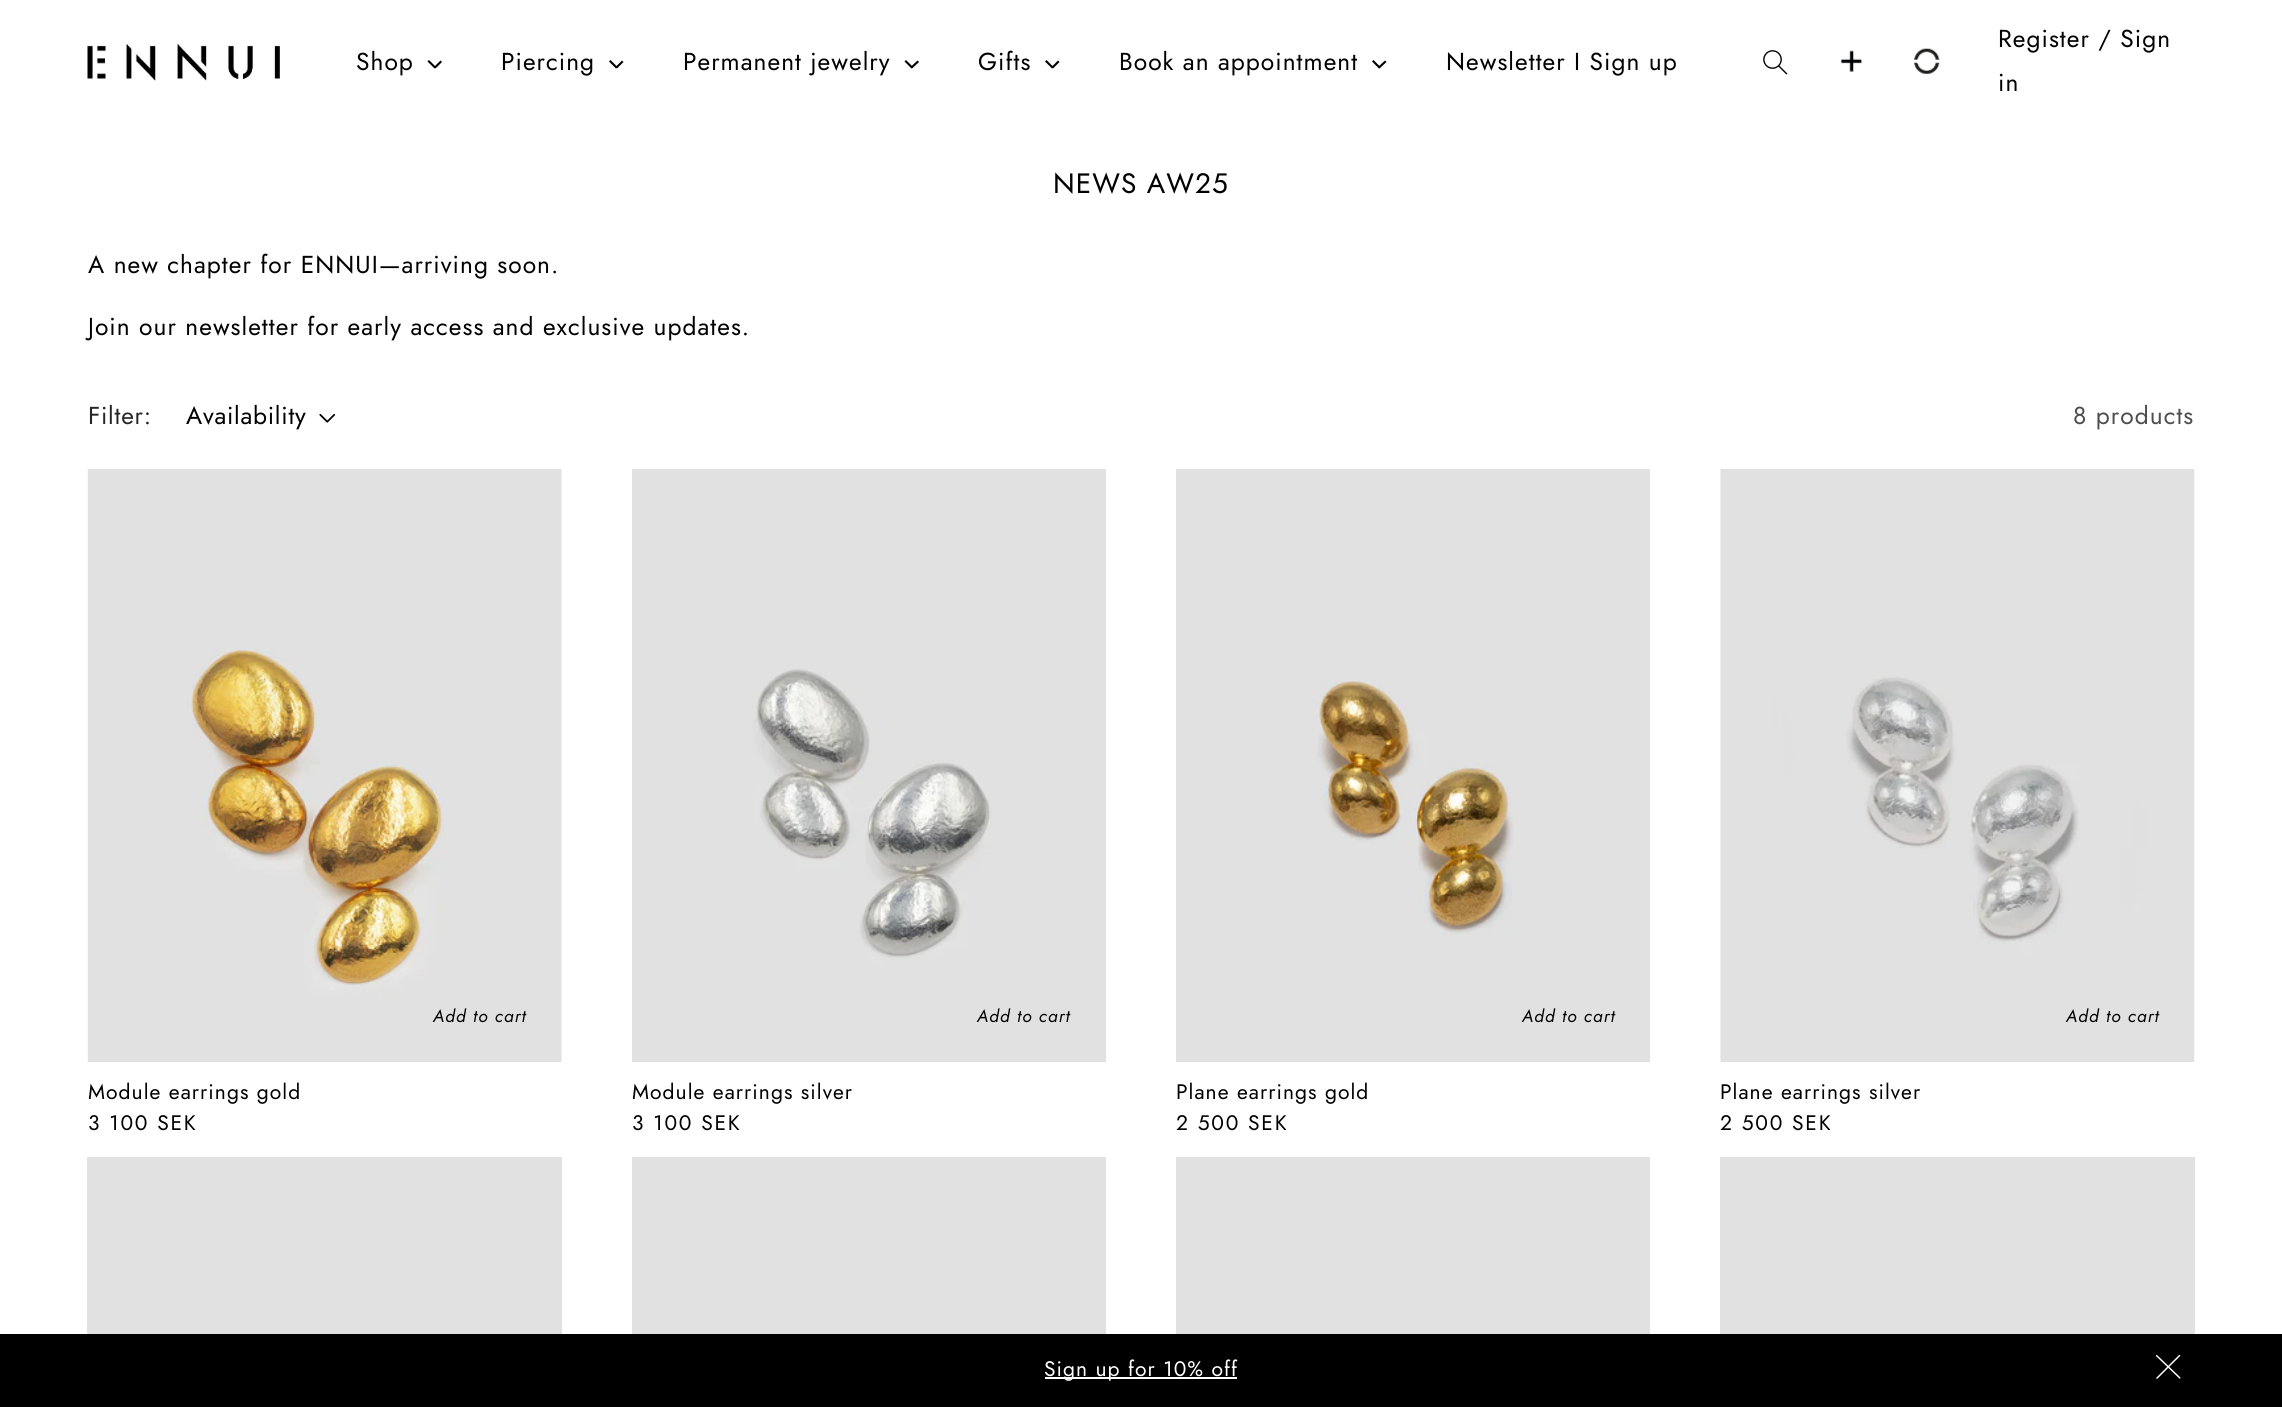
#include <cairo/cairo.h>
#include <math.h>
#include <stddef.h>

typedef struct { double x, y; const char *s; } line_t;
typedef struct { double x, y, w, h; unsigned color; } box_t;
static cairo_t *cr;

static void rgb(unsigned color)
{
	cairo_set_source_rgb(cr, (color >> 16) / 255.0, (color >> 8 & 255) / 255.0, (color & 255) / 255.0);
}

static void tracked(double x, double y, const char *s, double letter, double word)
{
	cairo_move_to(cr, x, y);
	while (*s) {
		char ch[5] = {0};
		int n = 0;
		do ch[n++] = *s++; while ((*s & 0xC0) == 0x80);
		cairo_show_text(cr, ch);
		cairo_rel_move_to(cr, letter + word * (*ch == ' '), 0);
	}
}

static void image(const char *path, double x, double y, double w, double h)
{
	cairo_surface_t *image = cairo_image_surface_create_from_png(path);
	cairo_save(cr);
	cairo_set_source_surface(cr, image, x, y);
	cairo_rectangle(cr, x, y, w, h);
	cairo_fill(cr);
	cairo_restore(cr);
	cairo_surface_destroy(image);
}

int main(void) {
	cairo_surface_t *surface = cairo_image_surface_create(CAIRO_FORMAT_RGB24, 2282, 1407);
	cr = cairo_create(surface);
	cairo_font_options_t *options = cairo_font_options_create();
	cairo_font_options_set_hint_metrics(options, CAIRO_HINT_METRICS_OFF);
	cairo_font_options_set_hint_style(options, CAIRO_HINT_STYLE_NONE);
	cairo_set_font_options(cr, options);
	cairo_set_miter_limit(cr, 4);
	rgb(0xffffff);
	cairo_paint(cr);
	image("img/1.png", 87, 43, 193, 38);
	rgb(0x000000);
	cairo_new_path(cr);
	cairo_move_to(cr, 440.5, 60.5);
	cairo_line_to(cr, 442, 62);
	cairo_line_to(cr, 435.5, 68.5);
	cairo_line_to(cr, 434, 67);
	cairo_close_path(cr);
	cairo_fill(cr);
	cairo_new_path(cr);
	cairo_move_to(cr, 429, 60);
	cairo_line_to(cr, 436, 67);
	cairo_line_to(cr, 434.5, 68.5);
	cairo_line_to(cr, 427.5, 61.5);
	cairo_close_path(cr);
	cairo_fill(cr);
	cairo_new_path(cr);
	cairo_move_to(cr, 622, 60.5);
	cairo_line_to(cr, 623.5, 62);
	cairo_line_to(cr, 617, 68.5);
	cairo_line_to(cr, 615.5, 67);
	cairo_close_path(cr);
	cairo_fill(cr);
	cairo_new_path(cr);
	cairo_move_to(cr, 610.5, 60);
	cairo_line_to(cr, 617.5, 67);
	cairo_line_to(cr, 616, 68.5);
	cairo_line_to(cr, 609, 61.5);
	cairo_close_path(cr);
	cairo_fill(cr);
	cairo_new_path(cr);
	cairo_move_to(cr, 917.5, 60.5);
	cairo_line_to(cr, 919, 62);
	cairo_line_to(cr, 912, 68.5);
	cairo_line_to(cr, 910.5, 67);
	cairo_close_path(cr);
	cairo_fill(cr);
	cairo_new_path(cr);
	cairo_move_to(cr, 906, 60);
	cairo_line_to(cr, 913, 67);
	cairo_line_to(cr, 911.5, 68.5);
	cairo_line_to(cr, 904.5, 61.5);
	cairo_close_path(cr);
	cairo_fill(cr);
	cairo_new_path(cr);
	cairo_move_to(cr, 1058, 60.5);
	cairo_line_to(cr, 1059.5, 62);
	cairo_line_to(cr, 1053, 68.5);
	cairo_line_to(cr, 1051.5, 67);
	cairo_close_path(cr);
	cairo_fill(cr);
	cairo_new_path(cr);
	cairo_move_to(cr, 1046.5, 60);
	cairo_line_to(cr, 1053.5, 67);
	cairo_line_to(cr, 1052, 68.5);
	cairo_line_to(cr, 1045, 61.5);
	cairo_close_path(cr);
	cairo_fill(cr);
	cairo_new_path(cr);
	cairo_move_to(cr, 1385, 60.5);
	cairo_line_to(cr, 1386.5, 62);
	cairo_line_to(cr, 1379.5, 68.5);
	cairo_line_to(cr, 1378, 67);
	cairo_close_path(cr);
	cairo_fill(cr);
	cairo_new_path(cr);
	cairo_move_to(cr, 1373.5, 60);
	cairo_line_to(cr, 1380.5, 67);
	cairo_line_to(cr, 1379, 68.5);
	cairo_line_to(cr, 1372, 61.5);
	cairo_close_path(cr);
	cairo_fill(cr);
	image("img/2.png", 1763, 50, 25, 25);
	image("img/3.png", 1841, 50, 22, 22);
	image("img/4.png", 1914, 48, 26, 26);
	image("img/5.png", 319, 413, 17, 10);
	image("img/6.png", 87, 469, 475, 593);
	image("img/7.png", 632, 469, 474, 593);
	image("img/8.png", 1176, 469, 474, 593);
	image("img/9.png", 1720, 469, 475, 593);
	rgb(0xe1e1e1);
	cairo_rectangle(cr, 87, 1157, 475, 177);
	cairo_fill(cr);
	image("img/10.png", 632, 1157, 474, 177);
	{
		static const box_t items[] = {
			{1176, 1157, 474, 177, 0xe1e1e1},
			{1720, 1157, 475, 177, 0xe1e1e1},
			{0, 1334, 2282, 73, 0x000000},
			{1045, 1377, 192, 2, 0xffffff},
		};
		for (size_t i = 0; i < sizeof items / sizeof *items; i++) {
			rgb(items[i].color);
			cairo_rectangle(cr, items[i].x, items[i].y, items[i].w, items[i].h);
			cairo_fill(cr);
		}
	}
	image("img/11.png", 2156, 1355, 25, 24);
	cairo_select_font_face(cr, "Jost", CAIRO_FONT_SLANT_NORMAL, CAIRO_FONT_WEIGHT_NORMAL);
	cairo_set_font_size(cr, 24.5);
	rgb(0x000000);
	{
		static const line_t items[] = {
			{356, 70, "Shop"},
			{501, 70, "Piercing"},
			{683, 70, "Permanent jewelry"},
			{978, 70, "Gifts"},
			{1119, 70, "Book an appointment"},
			{1446, 70, "Newsletter I Sign up"},
			{1998, 47, "Register / Sign"},
			{1998, 91, "in"},
		};
		for (size_t i = 0; i < sizeof items / sizeof *items; i++) {
			tracked(items[i].x, items[i].y, items[i].s, 1.05, 0);
		}
	}
	cairo_set_font_size(cr, 28);
	tracked(1053, 193, "NEWS AW25", 1.05, 0);
	cairo_set_font_size(cr, 24.5);
	tracked(88, 273, "A new chapter for ENNUI—arriving soon.", 1.05, 0);
	tracked(88, 335, "Join our newsletter for early access and exclusive updates.", 1.05, 0);
	rgb(0x262626);
	tracked(88, 424, "Filter:", 0.75, 0);
	rgb(0x000000);
	tracked(186, 424, "Availability", 0.75, 0);
	rgb(0x4d4d4d);
	tracked(2073, 424, "8 products", 1.05, 0);
	cairo_select_font_face(cr, "Jost", CAIRO_FONT_SLANT_ITALIC, CAIRO_FONT_WEIGHT_NORMAL);
	cairo_set_font_size(cr, 17.5);
	rgb(0x000000);
	tracked(433, 1022, "Add to cart", 1.05, 0);
	cairo_select_font_face(cr, "Jost", CAIRO_FONT_SLANT_NORMAL, CAIRO_FONT_WEIGHT_NORMAL);
	cairo_set_font_size(cr, 21);
	tracked(88, 1099, "Module earrings gold", 1.05, 0);
	tracked(88, 1130, "3 100 SEK", 1.75, 0);
	cairo_select_font_face(cr, "Jost", CAIRO_FONT_SLANT_ITALIC, CAIRO_FONT_WEIGHT_NORMAL);
	cairo_set_font_size(cr, 17.5);
	tracked(977, 1022, "Add to cart", 1.05, 0);
	cairo_select_font_face(cr, "Jost", CAIRO_FONT_SLANT_NORMAL, CAIRO_FONT_WEIGHT_NORMAL);
	cairo_set_font_size(cr, 21);
	tracked(632, 1099, "Module earrings silver", 1.05, 0);
	tracked(632, 1130, "3 100 SEK", 1.75, 0);
	cairo_select_font_face(cr, "Jost", CAIRO_FONT_SLANT_ITALIC, CAIRO_FONT_WEIGHT_NORMAL);
	cairo_set_font_size(cr, 17.5);
	tracked(1522, 1022, "Add to cart", 1.05, 0);
	cairo_select_font_face(cr, "Jost", CAIRO_FONT_SLANT_NORMAL, CAIRO_FONT_WEIGHT_NORMAL);
	cairo_set_font_size(cr, 21);
	tracked(1176, 1099, "Plane earrings gold", 1.05, 0);
	tracked(1176, 1130, "2 500 SEK", 1.75, 0);
	cairo_select_font_face(cr, "Jost", CAIRO_FONT_SLANT_ITALIC, CAIRO_FONT_WEIGHT_NORMAL);
	cairo_set_font_size(cr, 17.5);
	tracked(2066, 1022, "Add to cart", 1.05, 0);
	cairo_select_font_face(cr, "Jost", CAIRO_FONT_SLANT_NORMAL, CAIRO_FONT_WEIGHT_NORMAL);
	cairo_set_font_size(cr, 21);
	tracked(1720, 1099, "Plane earrings silver", 1.05, 0);
	tracked(1720, 1130, "2 500 SEK", 1.75, 0);
	rgb(0xffffff);
	tracked(1044, 1376, "Sign up for 10% off", 1.05, 0);
	cairo_surface_write_to_png(surface, "page.png");
	cairo_font_options_destroy(options);
	cairo_destroy(cr);
	cairo_surface_destroy(surface);
	return 0;
}
